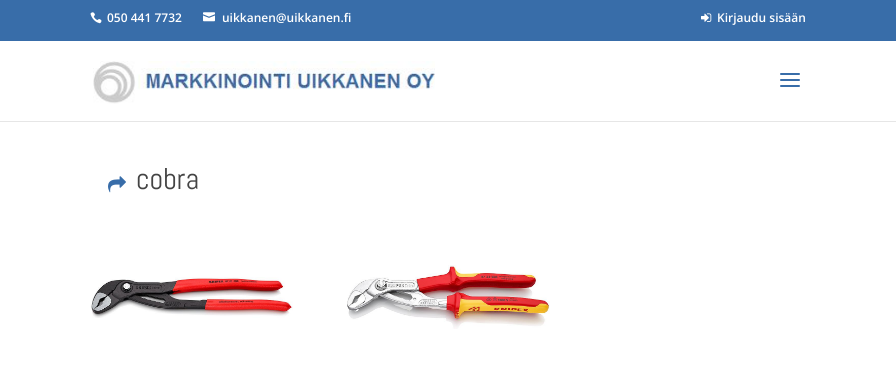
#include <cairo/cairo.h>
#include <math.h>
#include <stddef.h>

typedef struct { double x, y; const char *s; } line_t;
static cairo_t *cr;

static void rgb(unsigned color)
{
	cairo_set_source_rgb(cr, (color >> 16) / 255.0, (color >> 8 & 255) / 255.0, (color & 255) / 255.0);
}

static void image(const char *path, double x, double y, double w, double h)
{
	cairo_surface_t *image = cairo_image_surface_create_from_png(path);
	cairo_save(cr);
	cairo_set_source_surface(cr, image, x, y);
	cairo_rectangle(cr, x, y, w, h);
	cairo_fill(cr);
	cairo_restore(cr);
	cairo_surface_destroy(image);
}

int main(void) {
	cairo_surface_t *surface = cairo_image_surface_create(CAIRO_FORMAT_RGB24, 896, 388);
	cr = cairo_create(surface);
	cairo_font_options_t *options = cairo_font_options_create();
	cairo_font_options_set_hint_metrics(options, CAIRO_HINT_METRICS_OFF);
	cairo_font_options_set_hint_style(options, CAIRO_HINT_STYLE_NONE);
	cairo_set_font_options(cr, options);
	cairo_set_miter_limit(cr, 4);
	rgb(0x386da9);
	cairo_paint(cr);
	image("img/1.png", 90, 12, 12, 12);
	image("img/2.png", 203, 12, 12, 10);
	image("img/3.png", 701, 13, 11, 9);
	rgb(0xe6e6e6);
	cairo_rectangle(cr, 0, 121, 896, 1);
	cairo_fill(cr);
	rgb(0xffffff);
	cairo_rectangle(cr, 0, 41, 896, 80);
	cairo_fill(cr);
	image("img/4.png", 93, 61, 342, 43);
	image("img/5.png", 780, 73, 20, 14);
	cairo_rectangle(cr, 0, 122, 896, 266);
	cairo_fill(cr);
	image("img/6.png", 108, 176, 18, 17);
	image("img/7.png", 90, 277, 203, 41);
	image("img/8.png", 347, 265, 203, 64);
	cairo_select_font_face(cr, "Open Sans SemiBold", CAIRO_FONT_SLANT_NORMAL, CAIRO_FONT_WEIGHT_NORMAL);
	cairo_set_font_size(cr, 12);
	{
		static const line_t items[] = {
			{107, 22, "050 441 7732"},
			{222, 22, "uikkanen@uikkanen.fi"},
			{717, 22, "Kirjaudu sisään"},
		};
		for (size_t i = 0; i < sizeof items / sizeof *items; i++) {
			cairo_move_to(cr, items[i].x, items[i].y);
			cairo_show_text(cr, items[i].s);
		}
	}
	cairo_select_font_face(cr, "Abel", CAIRO_FONT_SLANT_NORMAL, CAIRO_FONT_WEIGHT_NORMAL);
	cairo_set_font_size(cr, 30);
	rgb(0x444444);
	cairo_move_to(cr, 136, 189);
	cairo_show_text(cr, "cobra");
	cairo_surface_write_to_png(surface, "page.png");
	cairo_font_options_destroy(options);
	cairo_destroy(cr);
	cairo_surface_destroy(surface);
	return 0;
}
